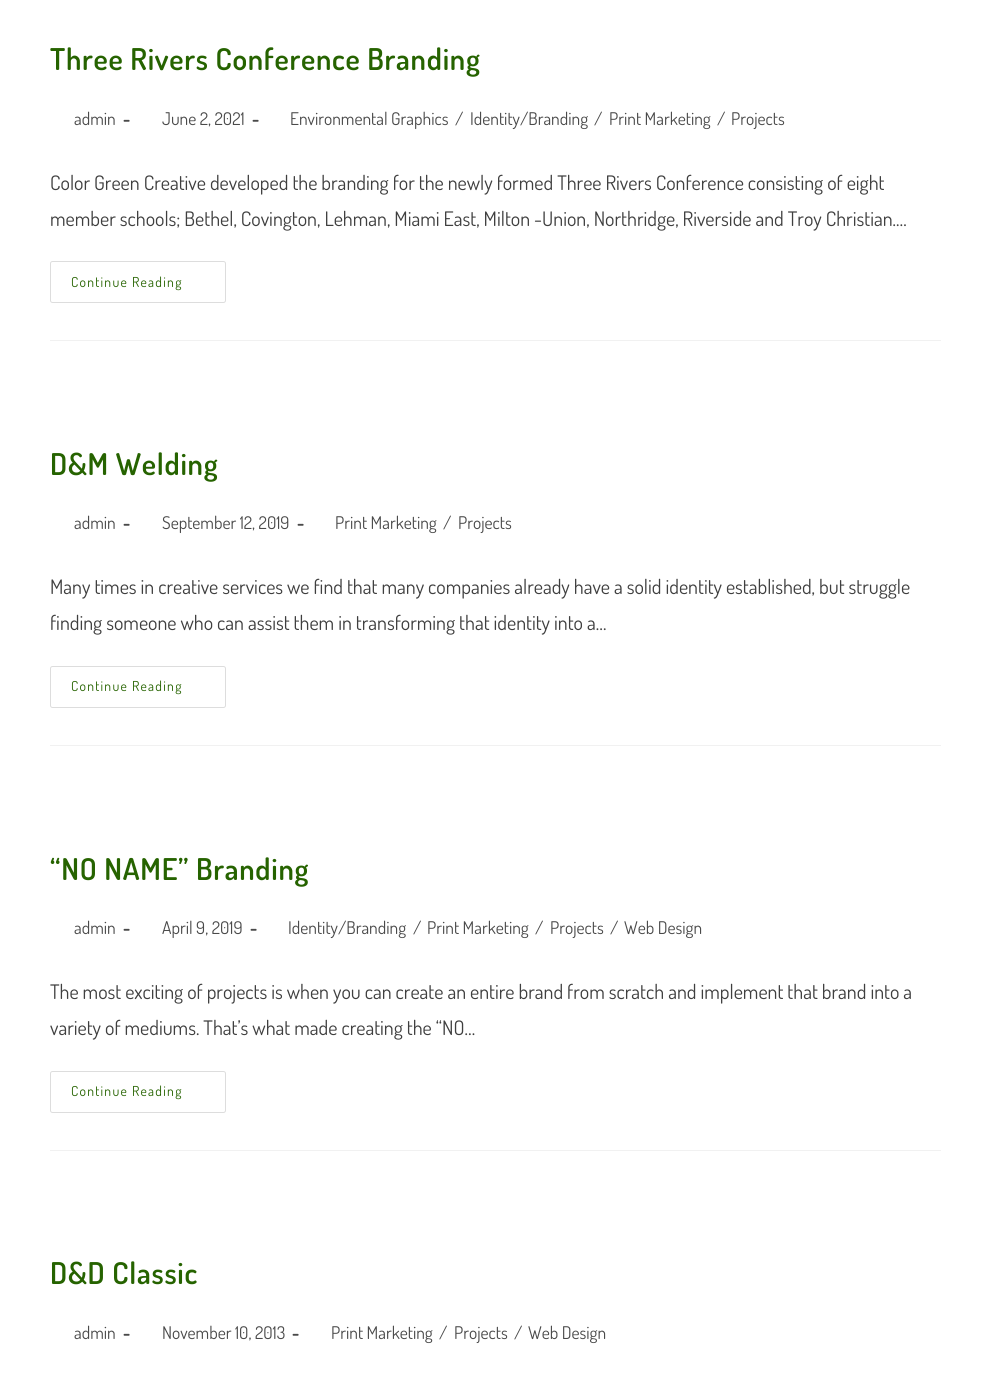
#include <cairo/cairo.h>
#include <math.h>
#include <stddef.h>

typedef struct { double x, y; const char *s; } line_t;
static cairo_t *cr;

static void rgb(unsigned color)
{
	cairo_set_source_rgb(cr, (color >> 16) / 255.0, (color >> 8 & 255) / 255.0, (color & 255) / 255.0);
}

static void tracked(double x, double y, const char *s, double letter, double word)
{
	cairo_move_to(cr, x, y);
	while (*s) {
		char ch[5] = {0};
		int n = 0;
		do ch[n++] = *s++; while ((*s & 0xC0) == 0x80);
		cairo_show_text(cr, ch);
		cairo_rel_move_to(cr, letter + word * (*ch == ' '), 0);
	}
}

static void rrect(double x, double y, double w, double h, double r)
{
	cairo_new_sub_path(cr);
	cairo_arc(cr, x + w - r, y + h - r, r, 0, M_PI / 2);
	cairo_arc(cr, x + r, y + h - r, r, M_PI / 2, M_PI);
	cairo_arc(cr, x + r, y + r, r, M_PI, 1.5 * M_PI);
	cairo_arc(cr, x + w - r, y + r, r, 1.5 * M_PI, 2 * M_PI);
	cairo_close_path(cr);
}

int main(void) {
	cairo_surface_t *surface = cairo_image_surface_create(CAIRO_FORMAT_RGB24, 991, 1373);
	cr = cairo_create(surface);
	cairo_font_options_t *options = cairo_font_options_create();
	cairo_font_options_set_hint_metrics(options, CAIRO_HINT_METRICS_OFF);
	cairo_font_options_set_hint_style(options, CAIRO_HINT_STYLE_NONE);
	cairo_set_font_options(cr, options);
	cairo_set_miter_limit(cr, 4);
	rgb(0xffffff);
	cairo_paint(cr);
	rgb(0xf1f1f1);
	cairo_rectangle(cr, 50, 340, 891, 1);
	cairo_fill(cr);
	rrect(50.5, 261.5, 175, 41, 2);
	rgb(0xdddddd);
	cairo_set_line_width(cr, 1);
	cairo_stroke(cr);
	rgb(0xf1f1f1);
	cairo_rectangle(cr, 50, 745, 891, 1);
	cairo_fill(cr);
	rrect(50.5, 666.5, 175, 41, 2);
	rgb(0xdddddd);
	cairo_stroke(cr);
	rgb(0xf1f1f1);
	cairo_rectangle(cr, 50, 1150, 891, 1);
	cairo_fill(cr);
	rrect(50.5, 1071.5, 175, 41, 2);
	rgb(0xdddddd);
	cairo_stroke(cr);
	cairo_select_font_face(cr, "Dosis SemiBold", CAIRO_FONT_SLANT_NORMAL, CAIRO_FONT_WEIGHT_NORMAL);
	cairo_set_font_size(cr, 30);
	rgb(0x266300);
	tracked(50, 70, "Three Rivers Conference Branding", 0.75, 0);
	cairo_select_font_face(cr, "Dosis", CAIRO_FONT_SLANT_NORMAL, CAIRO_FONT_WEIGHT_NORMAL);
	cairo_set_font_size(cr, 17.5);
	rgb(0x4a4a4a);
	cairo_move_to(cr, 74, 125);
	cairo_show_text(cr, "admin");
	cairo_select_font_face(cr, "Dosis", CAIRO_FONT_SLANT_NORMAL, CAIRO_FONT_WEIGHT_BOLD);
	cairo_move_to(cr, 123, 125);
	cairo_show_text(cr, "-");
	cairo_select_font_face(cr, "Dosis", CAIRO_FONT_SLANT_NORMAL, CAIRO_FONT_WEIGHT_NORMAL);
	cairo_move_to(cr, 162, 125);
	cairo_show_text(cr, "June 2, 2021");
	cairo_select_font_face(cr, "Dosis", CAIRO_FONT_SLANT_NORMAL, CAIRO_FONT_WEIGHT_BOLD);
	cairo_move_to(cr, 252, 125);
	cairo_show_text(cr, "-");
	cairo_select_font_face(cr, "Dosis", CAIRO_FONT_SLANT_NORMAL, CAIRO_FONT_WEIGHT_NORMAL);
	{
		static const line_t items[] = {
			{290, 125, "Environmental Graphics"},
			{455, 125, "/"},
			{470, 125, "Identity/Branding"},
			{594, 125, "/"},
			{609, 125, "Print Marketing"},
			{717, 125, "/"},
			{731, 125, "Projects"},
		};
		for (size_t i = 0; i < sizeof items / sizeof *items; i++) {
			cairo_move_to(cr, items[i].x, items[i].y);
			cairo_show_text(cr, items[i].s);
		}
	}
	cairo_set_font_size(cr, 20);
	rgb(0x3f3f3f);
	cairo_move_to(cr, 50, 190);
	cairo_show_text(cr, "Color Green Creative developed the branding for the newly formed Three Rivers Conference consisting of eight");
	cairo_move_to(cr, 50, 226);
	cairo_show_text(cr, "member schools; Bethel, Covington, Lehman, Miami East, Milton -Union, Northridge, Riverside and Troy Christian.…");
	cairo_set_font_size(cr, 13.75);
	rgb(0x266300);
	tracked(71, 287, "Continue Reading", 1.25, 0);
	cairo_select_font_face(cr, "Dosis SemiBold", CAIRO_FONT_SLANT_NORMAL, CAIRO_FONT_WEIGHT_NORMAL);
	cairo_set_font_size(cr, 30);
	tracked(50, 475, "D&M Welding", 0.75, 0);
	cairo_select_font_face(cr, "Dosis", CAIRO_FONT_SLANT_NORMAL, CAIRO_FONT_WEIGHT_NORMAL);
	cairo_set_font_size(cr, 17.5);
	rgb(0x4a4a4a);
	cairo_move_to(cr, 74, 529);
	cairo_show_text(cr, "admin");
	cairo_select_font_face(cr, "Dosis", CAIRO_FONT_SLANT_NORMAL, CAIRO_FONT_WEIGHT_BOLD);
	cairo_move_to(cr, 123, 529);
	cairo_show_text(cr, "-");
	cairo_select_font_face(cr, "Dosis", CAIRO_FONT_SLANT_NORMAL, CAIRO_FONT_WEIGHT_NORMAL);
	cairo_move_to(cr, 162, 529);
	cairo_show_text(cr, "September 12, 2019");
	cairo_select_font_face(cr, "Dosis", CAIRO_FONT_SLANT_NORMAL, CAIRO_FONT_WEIGHT_BOLD);
	cairo_move_to(cr, 297, 529);
	cairo_show_text(cr, "-");
	cairo_select_font_face(cr, "Dosis", CAIRO_FONT_SLANT_NORMAL, CAIRO_FONT_WEIGHT_NORMAL);
	{
		static const line_t items[] = {
			{335, 529, "Print Marketing"},
			{443, 529, "/"},
			{458, 529, "Projects"},
		};
		for (size_t i = 0; i < sizeof items / sizeof *items; i++) {
			cairo_move_to(cr, items[i].x, items[i].y);
			cairo_show_text(cr, items[i].s);
		}
	}
	cairo_set_font_size(cr, 20);
	rgb(0x3f3f3f);
	cairo_move_to(cr, 50, 594);
	cairo_show_text(cr, "Many times in creative services we find that many companies already have a solid identity established, but struggle");
	cairo_move_to(cr, 50, 630);
	cairo_show_text(cr, "finding someone who can assist them in transforming that identity into a…");
	cairo_set_font_size(cr, 13.75);
	rgb(0x266300);
	tracked(71, 691, "Continue Reading", 1.25, 0);
	cairo_select_font_face(cr, "Dosis SemiBold", CAIRO_FONT_SLANT_NORMAL, CAIRO_FONT_WEIGHT_NORMAL);
	cairo_set_font_size(cr, 30);
	tracked(50, 880, "“NO NAME” Branding", 0.75, 0);
	cairo_select_font_face(cr, "Dosis", CAIRO_FONT_SLANT_NORMAL, CAIRO_FONT_WEIGHT_NORMAL);
	cairo_set_font_size(cr, 17.5);
	rgb(0x4a4a4a);
	cairo_move_to(cr, 74, 934);
	cairo_show_text(cr, "admin");
	cairo_select_font_face(cr, "Dosis", CAIRO_FONT_SLANT_NORMAL, CAIRO_FONT_WEIGHT_BOLD);
	cairo_move_to(cr, 123, 934);
	cairo_show_text(cr, "-");
	cairo_select_font_face(cr, "Dosis", CAIRO_FONT_SLANT_NORMAL, CAIRO_FONT_WEIGHT_NORMAL);
	cairo_move_to(cr, 162, 934);
	cairo_show_text(cr, "April 9, 2019");
	cairo_select_font_face(cr, "Dosis", CAIRO_FONT_SLANT_NORMAL, CAIRO_FONT_WEIGHT_BOLD);
	cairo_move_to(cr, 250, 934);
	cairo_show_text(cr, "-");
	cairo_select_font_face(cr, "Dosis", CAIRO_FONT_SLANT_NORMAL, CAIRO_FONT_WEIGHT_NORMAL);
	{
		static const line_t items[] = {
			{288, 934, "Identity/Branding"},
			{413, 934, "/"},
			{427, 934, "Print Marketing"},
			{535, 934, "/"},
			{550, 934, "Projects"},
			{610, 934, "/"},
			{624, 934, "Web Design"},
		};
		for (size_t i = 0; i < sizeof items / sizeof *items; i++) {
			cairo_move_to(cr, items[i].x, items[i].y);
			cairo_show_text(cr, items[i].s);
		}
	}
	cairo_set_font_size(cr, 20);
	rgb(0x3f3f3f);
	cairo_move_to(cr, 50, 999);
	cairo_show_text(cr, "The most exciting of projects is when you can create an entire brand from scratch and implement that brand into a");
	cairo_move_to(cr, 50, 1035);
	cairo_show_text(cr, "variety of mediums. That’s what made creating the “NO…");
	cairo_set_font_size(cr, 13.75);
	rgb(0x266300);
	tracked(71, 1096, "Continue Reading", 1.25, 0);
	cairo_select_font_face(cr, "Dosis SemiBold", CAIRO_FONT_SLANT_NORMAL, CAIRO_FONT_WEIGHT_NORMAL);
	cairo_set_font_size(cr, 30);
	tracked(50, 1284, "D&D Classic", 0.75, 0);
	cairo_select_font_face(cr, "Dosis", CAIRO_FONT_SLANT_NORMAL, CAIRO_FONT_WEIGHT_NORMAL);
	cairo_set_font_size(cr, 17.5);
	rgb(0x4a4a4a);
	cairo_move_to(cr, 74, 1339);
	cairo_show_text(cr, "admin");
	cairo_select_font_face(cr, "Dosis", CAIRO_FONT_SLANT_NORMAL, CAIRO_FONT_WEIGHT_BOLD);
	cairo_move_to(cr, 123, 1339);
	cairo_show_text(cr, "-");
	cairo_select_font_face(cr, "Dosis", CAIRO_FONT_SLANT_NORMAL, CAIRO_FONT_WEIGHT_NORMAL);
	cairo_move_to(cr, 162, 1339);
	cairo_show_text(cr, "November 10, 2013");
	cairo_select_font_face(cr, "Dosis", CAIRO_FONT_SLANT_NORMAL, CAIRO_FONT_WEIGHT_BOLD);
	cairo_move_to(cr, 292, 1339);
	cairo_show_text(cr, "-");
	cairo_select_font_face(cr, "Dosis", CAIRO_FONT_SLANT_NORMAL, CAIRO_FONT_WEIGHT_NORMAL);
	{
		static const line_t items[] = {
			{331, 1339, "Print Marketing"},
			{439, 1339, "/"},
			{454, 1339, "Projects"},
			{514, 1339, "/"},
			{528, 1339, "Web Design"},
		};
		for (size_t i = 0; i < sizeof items / sizeof *items; i++) {
			cairo_move_to(cr, items[i].x, items[i].y);
			cairo_show_text(cr, items[i].s);
		}
	}
	cairo_surface_write_to_png(surface, "page.png");
	cairo_font_options_destroy(options);
	cairo_destroy(cr);
	cairo_surface_destroy(surface);
	return 0;
}
